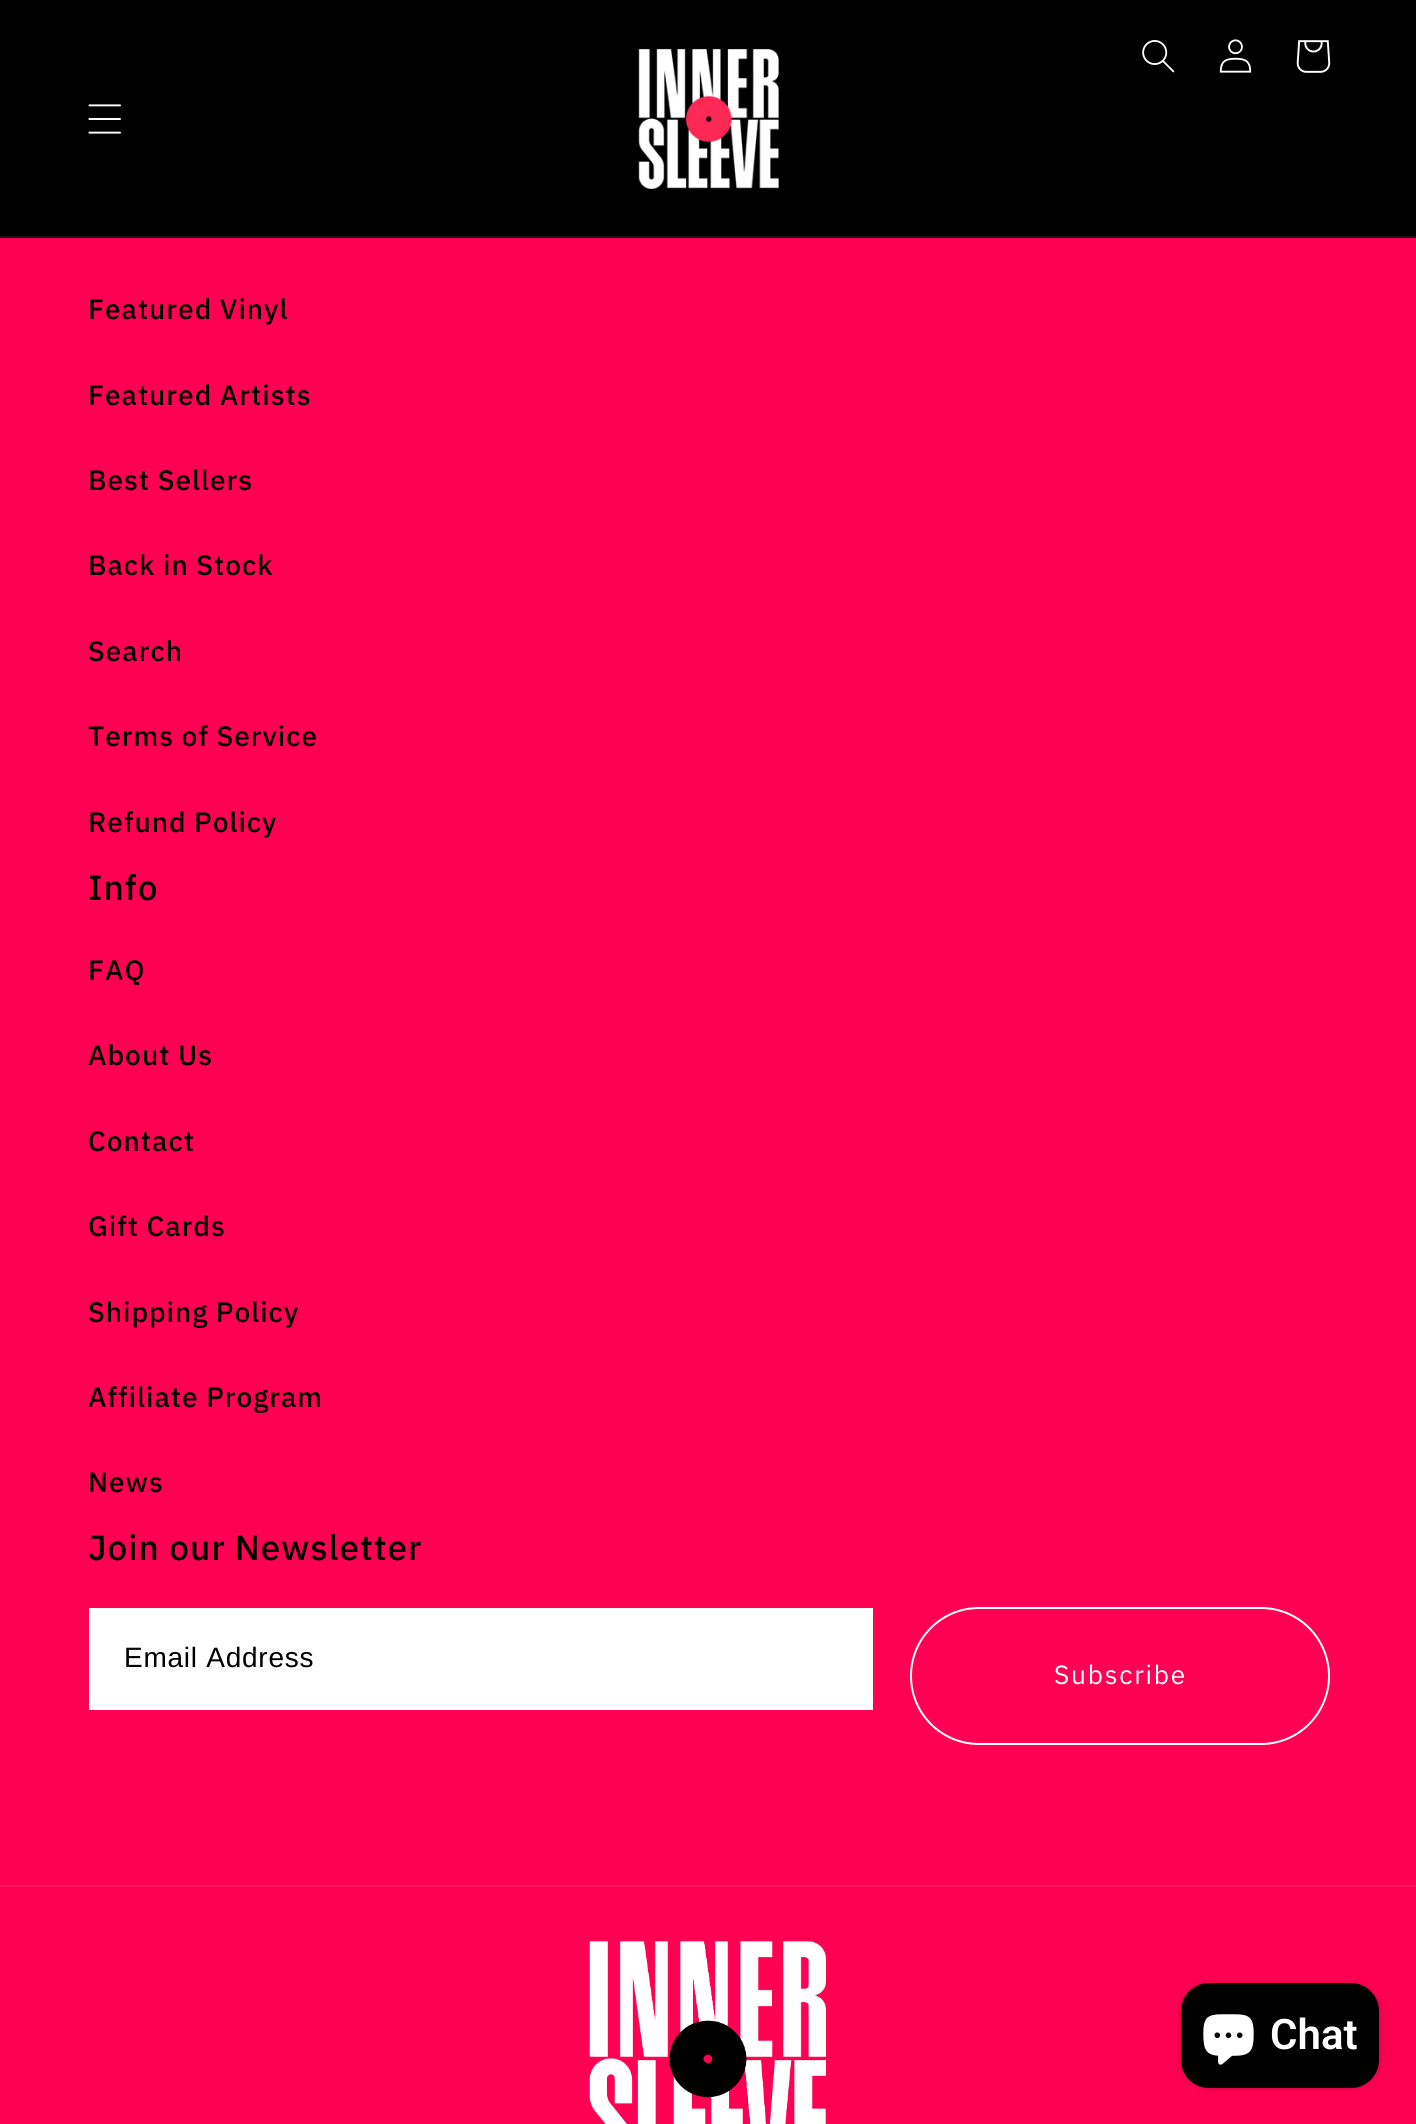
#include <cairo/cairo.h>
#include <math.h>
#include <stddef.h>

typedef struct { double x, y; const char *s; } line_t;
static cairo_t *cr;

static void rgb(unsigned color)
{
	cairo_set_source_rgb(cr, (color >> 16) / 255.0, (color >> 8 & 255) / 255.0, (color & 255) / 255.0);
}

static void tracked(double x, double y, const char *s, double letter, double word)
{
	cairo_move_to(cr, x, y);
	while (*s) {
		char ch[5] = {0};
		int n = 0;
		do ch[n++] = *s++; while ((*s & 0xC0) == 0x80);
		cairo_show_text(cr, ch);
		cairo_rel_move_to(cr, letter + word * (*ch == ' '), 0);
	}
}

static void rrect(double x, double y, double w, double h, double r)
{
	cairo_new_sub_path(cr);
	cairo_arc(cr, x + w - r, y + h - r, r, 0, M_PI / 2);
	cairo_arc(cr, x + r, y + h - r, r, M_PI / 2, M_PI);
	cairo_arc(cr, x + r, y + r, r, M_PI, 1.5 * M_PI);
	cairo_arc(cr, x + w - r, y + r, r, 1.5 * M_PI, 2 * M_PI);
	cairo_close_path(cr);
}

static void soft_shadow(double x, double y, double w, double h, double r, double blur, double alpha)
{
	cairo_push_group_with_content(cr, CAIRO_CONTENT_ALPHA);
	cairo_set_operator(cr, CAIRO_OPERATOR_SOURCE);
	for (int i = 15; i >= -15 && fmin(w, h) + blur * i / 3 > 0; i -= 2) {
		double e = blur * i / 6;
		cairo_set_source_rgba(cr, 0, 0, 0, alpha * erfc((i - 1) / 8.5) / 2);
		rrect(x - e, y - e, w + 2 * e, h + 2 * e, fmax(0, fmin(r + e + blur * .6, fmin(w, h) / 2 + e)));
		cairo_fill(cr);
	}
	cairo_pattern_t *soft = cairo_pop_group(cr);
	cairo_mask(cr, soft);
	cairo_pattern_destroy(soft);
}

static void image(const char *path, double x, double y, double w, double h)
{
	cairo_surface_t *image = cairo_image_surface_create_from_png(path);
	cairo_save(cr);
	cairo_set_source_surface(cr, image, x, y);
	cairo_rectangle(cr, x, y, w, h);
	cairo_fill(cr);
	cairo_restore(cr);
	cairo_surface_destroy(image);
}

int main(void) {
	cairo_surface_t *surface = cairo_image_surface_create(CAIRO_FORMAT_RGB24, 1416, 2124);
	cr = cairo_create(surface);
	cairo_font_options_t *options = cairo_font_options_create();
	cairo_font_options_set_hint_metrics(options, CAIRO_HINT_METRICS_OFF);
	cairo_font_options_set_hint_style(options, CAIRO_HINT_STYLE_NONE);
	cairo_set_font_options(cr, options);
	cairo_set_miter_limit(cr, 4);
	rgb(0xff0053);
	cairo_paint(cr);
	rgb(0x000000);
	cairo_rectangle(cr, 0, 0, 1416, 236);
	cairo_fill(cr);
	rgb(0x141414);
	cairo_rectangle(cr, 0, 236, 1416, 2);
	cairo_fill(cr);
	image("img/1.png", 88, 104, 33, 30);
	image("img/2.png", 638, 48, 141, 142);
	image("img/3.png", 1142, 40, 33, 33);
	image("img/4.png", 1219, 39, 33, 34);
	image("img/5.png", 1296, 40, 35, 33);
	rgb(0xffffff);
	cairo_rectangle(cr, 89, 1608, 784, 102);
	cairo_fill(cr);
	rrect(911, 1608, 418, 136, 68);
	cairo_stroke(cr);
	rgb(0xff1461);
	cairo_rectangle(cr, 0, 1885, 1416, 2);
	cairo_fill(cr);
	image("img/6.png", 589, 1941, 237, 183);
	rgb(0x000000);
	soft_shadow(1181, 1983, 198, 105, 28, 4.5, 0.15);
	rgb(0x000000);
	rrect(1181, 1983, 198, 105, 28);
	cairo_fill(cr);
	image("img/7.png", 1203, 2014, 51, 51);
	cairo_select_font_face(cr, "IBM Plex Sans Medium", CAIRO_FONT_SLANT_NORMAL, CAIRO_FONT_WEIGHT_NORMAL);
	cairo_set_font_size(cr, 28);
	{
		static const line_t items[] = {
			{88, 319, "Featured Vinyl"},
			{88, 405, "Featured Artists"},
			{88, 490, "Best Sellers"},
			{88, 575, "Back in Stock"},
			{88, 661, "Search"},
			{88, 746, "Terms of Service"},
			{88, 832, "Refund Policy"},
		};
		for (size_t i = 0; i < sizeof items / sizeof *items; i++) {
			tracked(items[i].x, items[i].y, items[i].s, 1, 0);
		}
	}
	cairo_set_font_size(cr, 35);
	tracked(88, 900, "Info", 1, 0);
	cairo_set_font_size(cr, 28);
	{
		static const line_t items[] = {
			{88, 980, "FAQ"},
			{88, 1065, "About Us"},
			{88, 1151, "Contact"},
			{88, 1236, "Gift Cards"},
			{88, 1322, "Shipping Policy"},
			{88, 1407, "Affiliate Program"},
			{88, 1492, "News"},
		};
		for (size_t i = 0; i < sizeof items / sizeof *items; i++) {
			tracked(items[i].x, items[i].y, items[i].s, 1, 0);
		}
	}
	cairo_set_font_size(cr, 35);
	tracked(88, 1560, "Join our Newsletter", 1, 0);
	cairo_select_font_face(cr, "Liberation Sans", CAIRO_FONT_SLANT_NORMAL, CAIRO_FONT_WEIGHT_NORMAL);
	cairo_set_font_size(cr, 28);
	tracked(124, 1667, "Email Address", 0.75, 0);
	cairo_select_font_face(cr, "IBM Plex Sans", CAIRO_FONT_SLANT_NORMAL, CAIRO_FONT_WEIGHT_NORMAL);
	cairo_set_font_size(cr, 26.25);
	rgb(0xffffff);
	tracked(1054, 1684, "Subscribe", 1.75, 0);
	cairo_select_font_face(cr, "Roboto SemiBold", CAIRO_FONT_SLANT_NORMAL, CAIRO_FONT_WEIGHT_NORMAL);
	cairo_set_font_size(cr, 42);
	cairo_move_to(cr, 1270, 2049);
	cairo_show_text(cr, "Chat");
	cairo_surface_write_to_png(surface, "page.png");
	cairo_font_options_destroy(options);
	cairo_destroy(cr);
	cairo_surface_destroy(surface);
	return 0;
}
